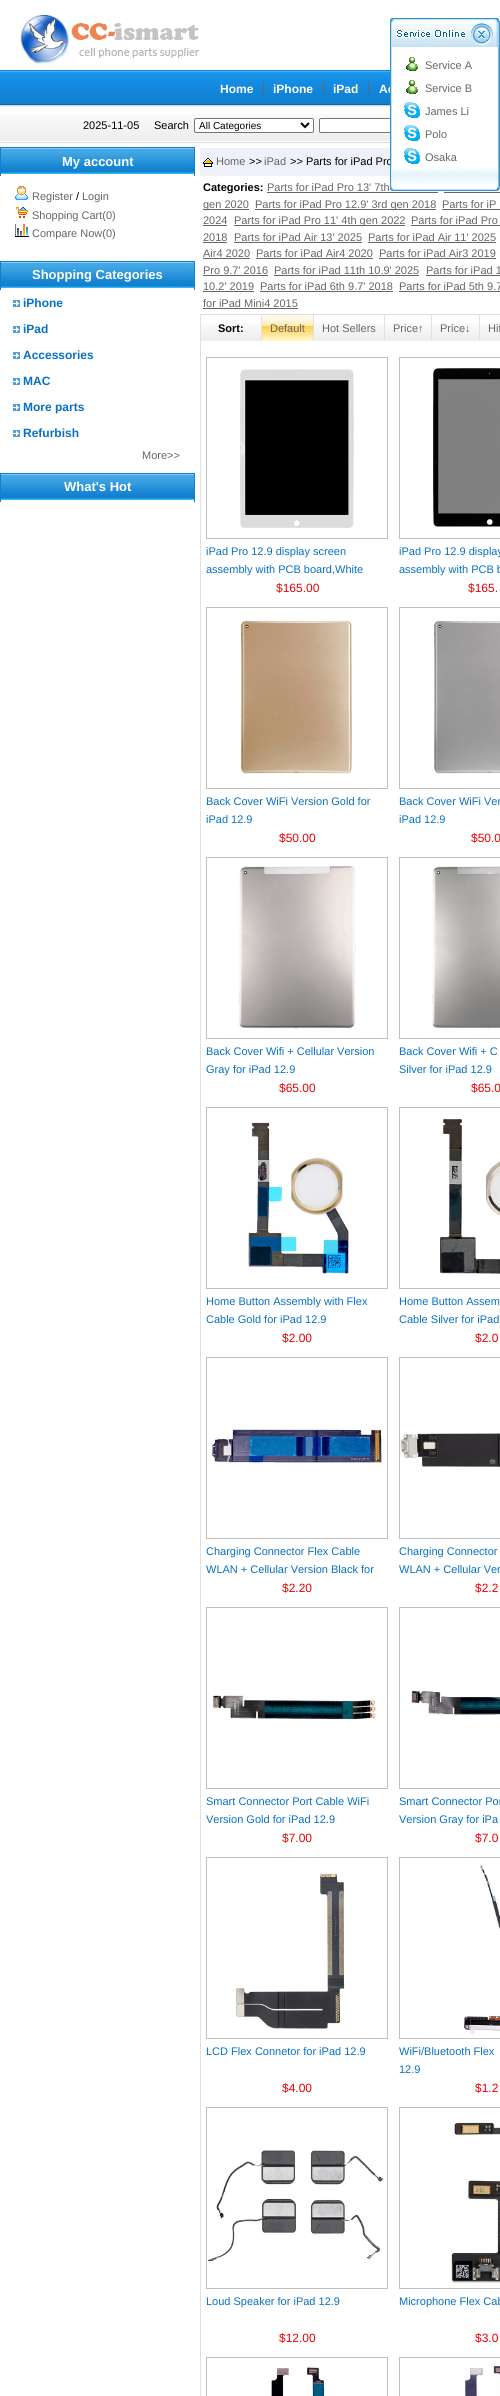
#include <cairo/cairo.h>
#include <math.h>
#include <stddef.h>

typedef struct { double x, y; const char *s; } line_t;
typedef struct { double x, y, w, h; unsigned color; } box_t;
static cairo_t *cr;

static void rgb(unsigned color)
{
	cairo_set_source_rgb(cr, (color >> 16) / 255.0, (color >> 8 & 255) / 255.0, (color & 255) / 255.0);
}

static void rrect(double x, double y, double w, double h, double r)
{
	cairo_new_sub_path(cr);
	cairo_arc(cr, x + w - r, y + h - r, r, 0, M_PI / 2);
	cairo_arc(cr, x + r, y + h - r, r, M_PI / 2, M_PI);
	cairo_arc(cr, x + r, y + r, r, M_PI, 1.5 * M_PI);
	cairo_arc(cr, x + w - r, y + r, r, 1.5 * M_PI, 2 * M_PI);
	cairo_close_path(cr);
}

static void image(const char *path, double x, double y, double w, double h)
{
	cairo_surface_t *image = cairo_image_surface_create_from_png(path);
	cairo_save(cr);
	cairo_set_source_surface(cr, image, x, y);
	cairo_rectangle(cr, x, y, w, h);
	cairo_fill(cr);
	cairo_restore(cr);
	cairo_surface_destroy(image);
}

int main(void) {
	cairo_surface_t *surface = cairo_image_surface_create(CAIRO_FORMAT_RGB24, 500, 2396);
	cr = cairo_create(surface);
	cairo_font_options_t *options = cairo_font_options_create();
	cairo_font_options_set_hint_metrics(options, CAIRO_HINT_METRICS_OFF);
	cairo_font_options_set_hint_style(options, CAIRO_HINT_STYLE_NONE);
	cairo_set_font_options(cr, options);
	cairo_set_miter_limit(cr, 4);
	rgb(0xffffff);
	cairo_paint(cr);
	image("img/1.png", 20, 15, 179, 49);
	image("img/2.png", 0, 70, 390, 37);
	{
		static const box_t items[] = {
			{263, 82, 1, 12, 0x666666},
			{323, 82, 1, 12, 0x666666},
			{368, 82, 1, 12, 0x666666},
		};
		for (size_t i = 0; i < sizeof items / sizeof *items; i++) {
			rgb(items[i].color);
			cairo_rectangle(cr, items[i].x, items[i].y, items[i].w, items[i].h);
			cairo_fill(cr);
		}
	}
	image("img/3.png", 0, 114, 390, 29);
	rgb(0xffffff);
	rrect(194.5, 118.5, 119, 14, 1.5);
	cairo_fill_preserve(cr);
	rgb(0x767676);
	cairo_set_line_width(cr, 1);
	cairo_stroke(cr);
	cairo_new_path(cr);
	cairo_move_to(cr, 301, 123);
	cairo_line_to(cr, 305, 127);
	cairo_line_to(cr, 309, 123);
	rgb(0x000000);
	cairo_set_line_width(cr, 2);
	cairo_stroke(cr);
	rgb(0xffffff);
	rrect(319.5, 118.5, 165, 14, 1.5);
	cairo_fill_preserve(cr);
	rgb(0x767676);
	cairo_set_line_width(cr, 1);
	cairo_stroke(cr);
	image("img/4.png", 390, 18, 110, 29);
	image("img/8.png", 390, 167, 110, 24);
	image("img/9.png", 0, 147, 195, 29);
	image("img/10.png", 15, 186, 13, 14);
	image("img/11.png", 16, 207, 12, 11);
	image("img/12.png", 15, 224, 14, 13);
	image("img/9.png", 0, 261, 195, 29);
	image("img/13.png", 13, 300, 7, 7);
	image("img/13.png", 13, 326, 7, 7);
	image("img/13.png", 13, 352, 7, 7);
	image("img/13.png", 13, 378, 7, 7);
	image("img/13.png", 13, 404, 7, 7);
	image("img/13.png", 13, 430, 7, 7);
	image("img/9.png", 0, 473, 195, 29);
	rgb(0xeef1f9);
	cairo_rectangle(cr, 200, 148, 190, 28);
	cairo_fill(cr);
	image("img/14.png", 203, 158, 10, 9);
	{
		static const box_t items[] = {
			{267, 192, 171, 1, 0x666666},
			{444, 192, 56, 1, 0x666666},
			{203, 209, 46, 1, 0x666666},
			{255, 209, 181, 1, 0x666666},
			{442, 209, 58, 1, 0x666666},
			{203, 225, 24, 1, 0x666666},
			{234, 225, 171, 1, 0x666666},
			{411, 225, 89, 1, 0x666666},
			{203, 242, 24, 1, 0x666666},
			{234, 242, 128, 1, 0x666666},
			{368, 242, 128, 1, 0x666666},
			{203, 258, 47, 1, 0x666666},
			{256, 258, 117, 1, 0x666666},
			{379, 258, 117, 1, 0x666666},
			{203, 275, 65, 1, 0x666666},
			{274, 275, 145, 1, 0x666666},
			{426, 275, 74, 1, 0x666666},
			{203, 291, 51, 1, 0x666666},
			{260, 291, 133, 1, 0x666666},
			{399, 291, 101, 1, 0x666666},
			{203, 308, 95, 1, 0x666666},
		};
		for (size_t i = 0; i < sizeof items / sizeof *items; i++) {
			rgb(items[i].color);
			cairo_rectangle(cr, items[i].x, items[i].y, items[i].w, items[i].h);
			cairo_fill(cr);
		}
	}
	cairo_rectangle(cr, 200.5, 314.5, 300, 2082);
	rgb(0xe1e1e1);
	cairo_stroke(cr);
	image("img/15.png", 201, 323, 299, 18);
	cairo_rectangle(cr, 261, 315, 1, 26);
	cairo_fill(cr);
	image("img/16.png", 262, 315, 51, 26);
	{
		static const box_t items[] = {
			{313, 315, 1, 26, 0xe1e1e1},
			{384, 315, 1, 26, 0xe1e1e1},
			{431, 315, 1, 26, 0xe1e1e1},
			{479, 315, 1, 26, 0xe1e1e1},
		};
		for (size_t i = 0; i < sizeof items / sizeof *items; i++) {
			rgb(items[i].color);
			cairo_rectangle(cr, items[i].x, items[i].y, items[i].w, items[i].h);
			cairo_fill(cr);
		}
	}
	cairo_rectangle(cr, 206.5, 357.5, 181, 181);
	rgb(0xc0c0c0);
	cairo_stroke(cr);
	image("img/17.png", 240, 369, 114, 159);
	cairo_rectangle(cr, 399.5, 357.5, 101, 181);
	cairo_stroke(cr);
	image("img/18.png", 433, 368, 67, 159);
	cairo_rectangle(cr, 206.5, 607.5, 181, 181);
	cairo_stroke(cr);
	image("img/19.png", 240, 620, 112, 154);
	cairo_rectangle(cr, 399.5, 607.5, 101, 181);
	cairo_stroke(cr);
	image("img/20.png", 434, 621, 66, 153);
	cairo_rectangle(cr, 206.5, 857.5, 181, 181);
	cairo_stroke(cr);
	image("img/21.png", 239, 866, 117, 163);
	cairo_rectangle(cr, 399.5, 857.5, 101, 181);
	cairo_stroke(cr);
	image("img/22.png", 432, 866, 68, 163);
	cairo_rectangle(cr, 206.5, 1107.5, 181, 181);
	cairo_stroke(cr);
	image("img/23.png", 248, 1122, 101, 152);
	cairo_rectangle(cr, 399.5, 1107.5, 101, 181);
	cairo_stroke(cr);
	image("img/24.png", 440, 1119, 60, 155);
	cairo_rectangle(cr, 206.5, 1357.5, 181, 181);
	cairo_stroke(cr);
	image("img/25.png", 211, 1429, 171, 34);
	cairo_rectangle(cr, 399.5, 1357.5, 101, 181);
	cairo_stroke(cr);
	image("img/26.png", 400, 1432, 100, 35);
	cairo_rectangle(cr, 206.5, 1607.5, 181, 181);
	cairo_stroke(cr);
	image("img/27.png", 212, 1695, 164, 25);
	cairo_rectangle(cr, 399.5, 1607.5, 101, 181);
	cairo_stroke(cr);
	image("img/28.png", 411, 1690, 89, 25);
	cairo_rectangle(cr, 206.5, 1857.5, 181, 181);
	cairo_stroke(cr);
	image("img/29.png", 234, 1872, 111, 157);
	cairo_rectangle(cr, 399.5, 1857.5, 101, 181);
	cairo_stroke(cr);
	image("img/30.png", 463, 1864, 37, 170);
	cairo_rectangle(cr, 206.5, 2107.5, 181, 181);
	cairo_stroke(cr);
	image("img/31.png", 207, 2150, 177, 111);
	cairo_rectangle(cr, 399.5, 2107.5, 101, 181);
	cairo_stroke(cr);
	image("img/32.png", 451, 2122, 49, 161);
	cairo_rectangle(cr, 206.5, 2357.5, 181, 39);
	cairo_stroke(cr);
	image("img/33.png", 271, 2366, 56, 30);
	cairo_rectangle(cr, 399.5, 2357.5, 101, 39);
	cairo_stroke(cr);
	image("img/34.png", 464, 2365, 36, 31);
	cairo_select_font_face(cr, "Liberation Sans", CAIRO_FONT_SLANT_NORMAL, CAIRO_FONT_WEIGHT_BOLD);
	cairo_set_font_size(cr, 12);
	rgb(0xffffff);
	{
		static const line_t items[] = {
			{220, 93, "Home"},
			{273, 93, "iPhone"},
			{333, 93, "iPad"},
			{379, 93, "Ac"},
		};
		for (size_t i = 0; i < sizeof items / sizeof *items; i++) {
			cairo_move_to(cr, items[i].x, items[i].y);
			cairo_show_text(cr, items[i].s);
		}
	}
	cairo_select_font_face(cr, "Liberation Sans", CAIRO_FONT_SLANT_NORMAL, CAIRO_FONT_WEIGHT_NORMAL);
	cairo_set_font_size(cr, 11);
	rgb(0x000000);
	cairo_move_to(cr, 83, 129);
	cairo_show_text(cr, "2025-11-05");
	cairo_move_to(cr, 154, 129);
	cairo_show_text(cr, "Search");
	cairo_set_font_size(cr, 10);
	cairo_move_to(cr, 199, 129);
	cairo_show_text(cr, "All Categories");
	cairo_select_font_face(cr, "Liberation Sans", CAIRO_FONT_SLANT_NORMAL, CAIRO_FONT_WEIGHT_BOLD);
	cairo_set_font_size(cr, 13);
	rgb(0xffffff);
	cairo_move_to(cr, 62, 166);
	cairo_show_text(cr, "My account");
	cairo_select_font_face(cr, "Liberation Sans", CAIRO_FONT_SLANT_NORMAL, CAIRO_FONT_WEIGHT_NORMAL);
	cairo_set_font_size(cr, 11);
	rgb(0x666666);
	cairo_move_to(cr, 32, 200);
	cairo_show_text(cr, "Register");
	rgb(0x000000);
	cairo_move_to(cr, 76, 200);
	cairo_show_text(cr, "/");
	rgb(0x666666);
	{
		static const line_t items[] = {
			{82, 200, "Login"},
			{32, 219, "Shopping Cart(0)"},
			{32, 237, "Compare Now(0)"},
		};
		for (size_t i = 0; i < sizeof items / sizeof *items; i++) {
			cairo_move_to(cr, items[i].x, items[i].y);
			cairo_show_text(cr, items[i].s);
		}
	}
	cairo_select_font_face(cr, "Liberation Sans", CAIRO_FONT_SLANT_NORMAL, CAIRO_FONT_WEIGHT_BOLD);
	cairo_set_font_size(cr, 13);
	rgb(0xffffff);
	cairo_move_to(cr, 32, 279);
	cairo_show_text(cr, "Shopping Categories");
	cairo_set_font_size(cr, 12);
	rgb(0x0871c4);
	{
		static const line_t items[] = {
			{23, 307, "iPhone"},
			{23, 333, "iPad"},
			{23, 359, "Accessories"},
			{23, 385, "MAC"},
			{23, 411, "More parts"},
			{23, 437, "Refurbish"},
		};
		for (size_t i = 0; i < sizeof items / sizeof *items; i++) {
			cairo_move_to(cr, items[i].x, items[i].y);
			cairo_show_text(cr, items[i].s);
		}
	}
	cairo_select_font_face(cr, "Liberation Sans", CAIRO_FONT_SLANT_NORMAL, CAIRO_FONT_WEIGHT_NORMAL);
	cairo_set_font_size(cr, 11);
	rgb(0x666666);
	cairo_move_to(cr, 142, 459);
	cairo_show_text(cr, "More>>");
	cairo_select_font_face(cr, "Liberation Sans", CAIRO_FONT_SLANT_NORMAL, CAIRO_FONT_WEIGHT_BOLD);
	cairo_set_font_size(cr, 13);
	rgb(0xffffff);
	cairo_move_to(cr, 64, 491);
	cairo_show_text(cr, "What's Hot");
	cairo_select_font_face(cr, "Liberation Sans", CAIRO_FONT_SLANT_NORMAL, CAIRO_FONT_WEIGHT_NORMAL);
	cairo_set_font_size(cr, 11);
	rgb(0x666666);
	cairo_move_to(cr, 216, 165);
	cairo_show_text(cr, "Home");
	rgb(0x000000);
	cairo_move_to(cr, 249, 165);
	cairo_show_text(cr, ">>");
	rgb(0x666666);
	cairo_move_to(cr, 264, 165);
	cairo_show_text(cr, "iPad");
	rgb(0x000000);
	cairo_move_to(cr, 290, 165);
	cairo_show_text(cr, ">> Parts for iPad Pro");
	image("img/5.png", 390, 47, 110, 120);
	rgb(0x666666);
	cairo_move_to(cr, 425, 161);
	cairo_show_text(cr, "Osaka");
	image("img/7.png", 404, 148, 16, 16);
	cairo_move_to(cr, 425, 138);
	cairo_show_text(cr, "Polo");
	image("img/7.png", 404, 125, 16, 16);
	cairo_move_to(cr, 425, 115);
	cairo_show_text(cr, "James Li");
	image("img/7.png", 404, 102, 16, 16);
	cairo_move_to(cr, 425, 92);
	cairo_show_text(cr, "Service B");
	image("img/6.png", 406, 80, 12, 14);
	cairo_move_to(cr, 425, 69);
	cairo_show_text(cr, "Service A");
	image("img/6.png", 406, 57, 12, 14);
	cairo_select_font_face(cr, "Liberation Sans", CAIRO_FONT_SLANT_NORMAL, CAIRO_FONT_WEIGHT_BOLD);
	rgb(0x000000);
	cairo_move_to(cr, 203, 191);
	cairo_show_text(cr, "Categories:");
	cairo_select_font_face(cr, "Liberation Sans", CAIRO_FONT_SLANT_NORMAL, CAIRO_FONT_WEIGHT_NORMAL);
	rgb(0x666666);
	{
		static const line_t items[] = {
			{267, 191, "Parts for iPad Pro 13' 7th"},
			{203, 208, "gen 2020"},
			{255, 208, "Parts for iPad Pro 12.9' 3rd gen 2018"},
			{442, 208, "Parts for iP"},
			{203, 224, "2024"},
			{234, 224, "Parts for iPad Pro 11' 4th gen 2022"},
			{411, 224, "Parts for iPad Pro"},
			{203, 241, "2018"},
			{234, 241, "Parts for iPad Air 13' 2025"},
			{368, 241, "Parts for iPad Air 11' 2025"},
			{203, 257, "Air4 2020"},
			{256, 257, "Parts for iPad Air4 2020"},
			{379, 257, "Parts for iPad Air3 2019"},
			{203, 274, "Pro 9.7' 2016"},
			{274, 274, "Parts for iPad 11th 10.9' 2025"},
			{426, 274, "Parts for iPad 1"},
			{203, 290, "10.2' 2019"},
			{260, 290, "Parts for iPad 6th 9.7' 2018"},
			{399, 290, "Parts for iPad 5th 9.7"},
			{203, 307, "for iPad Mini4 2015"},
		};
		for (size_t i = 0; i < sizeof items / sizeof *items; i++) {
			cairo_move_to(cr, items[i].x, items[i].y);
			cairo_show_text(cr, items[i].s);
		}
	}
	cairo_select_font_face(cr, "Liberation Sans", CAIRO_FONT_SLANT_NORMAL, CAIRO_FONT_WEIGHT_BOLD);
	rgb(0x000000);
	cairo_move_to(cr, 218, 332);
	cairo_show_text(cr, "Sort:");
	cairo_select_font_face(cr, "Liberation Sans", CAIRO_FONT_SLANT_NORMAL, CAIRO_FONT_WEIGHT_NORMAL);
	rgb(0x666666);
	{
		static const line_t items[] = {
			{270, 332, "Default"},
			{322, 332, "Hot Sellers"},
			{393, 332, "Price↑"},
			{440, 332, "Price↓"},
			{488, 332, "Hit"},
		};
		for (size_t i = 0; i < sizeof items / sizeof *items; i++) {
			cairo_move_to(cr, items[i].x, items[i].y);
			cairo_show_text(cr, items[i].s);
		}
	}
	rgb(0x0871c4);
	cairo_move_to(cr, 206, 555);
	cairo_show_text(cr, "iPad Pro 12.9 display screen");
	cairo_move_to(cr, 206, 573);
	cairo_show_text(cr, "assembly with PCB board,White");
	cairo_set_font_size(cr, 12);
	rgb(0xe80202);
	cairo_move_to(cr, 276, 592);
	cairo_show_text(cr, "$165.00");
	cairo_set_font_size(cr, 11);
	rgb(0x0871c4);
	cairo_move_to(cr, 399, 555);
	cairo_show_text(cr, "iPad Pro 12.9 display");
	cairo_move_to(cr, 399, 573);
	cairo_show_text(cr, "assembly with PCB b");
	cairo_set_font_size(cr, 12);
	rgb(0xe80202);
	cairo_move_to(cr, 468, 592);
	cairo_show_text(cr, "$165.");
	cairo_set_font_size(cr, 11);
	rgb(0x0871c4);
	cairo_move_to(cr, 206, 805);
	cairo_show_text(cr, "Back Cover WiFi Version Gold for");
	cairo_move_to(cr, 206, 823);
	cairo_show_text(cr, "iPad 12.9");
	cairo_set_font_size(cr, 12);
	rgb(0xe80202);
	cairo_move_to(cr, 279, 842);
	cairo_show_text(cr, "$50.00");
	cairo_set_font_size(cr, 11);
	rgb(0x0871c4);
	cairo_move_to(cr, 399, 805);
	cairo_show_text(cr, "Back Cover WiFi Ver");
	cairo_move_to(cr, 399, 823);
	cairo_show_text(cr, "iPad 12.9");
	cairo_set_font_size(cr, 12);
	rgb(0xe80202);
	cairo_move_to(cr, 471, 842);
	cairo_show_text(cr, "$50.0");
	cairo_set_font_size(cr, 11);
	rgb(0x0871c4);
	cairo_move_to(cr, 206, 1055);
	cairo_show_text(cr, "Back Cover Wifi + Cellular Version");
	cairo_move_to(cr, 206, 1073);
	cairo_show_text(cr, "Gray for iPad 12.9");
	cairo_set_font_size(cr, 12);
	rgb(0xe80202);
	cairo_move_to(cr, 279, 1092);
	cairo_show_text(cr, "$65.00");
	cairo_set_font_size(cr, 11);
	rgb(0x0871c4);
	cairo_move_to(cr, 399, 1055);
	cairo_show_text(cr, "Back Cover Wifi + C");
	cairo_move_to(cr, 399, 1073);
	cairo_show_text(cr, "Silver for iPad 12.9");
	cairo_set_font_size(cr, 12);
	rgb(0xe80202);
	cairo_move_to(cr, 471, 1092);
	cairo_show_text(cr, "$65.0");
	cairo_set_font_size(cr, 11);
	rgb(0x0871c4);
	cairo_move_to(cr, 206, 1305);
	cairo_show_text(cr, "Home Button Assembly with Flex");
	cairo_move_to(cr, 206, 1323);
	cairo_show_text(cr, "Cable Gold for iPad 12.9");
	cairo_set_font_size(cr, 12);
	rgb(0xe80202);
	cairo_move_to(cr, 282, 1342);
	cairo_show_text(cr, "$2.00");
	cairo_set_font_size(cr, 11);
	rgb(0x0871c4);
	cairo_move_to(cr, 399, 1305);
	cairo_show_text(cr, "Home Button Assem");
	cairo_move_to(cr, 399, 1323);
	cairo_show_text(cr, "Cable Silver for iPad");
	cairo_set_font_size(cr, 12);
	rgb(0xe80202);
	cairo_move_to(cr, 475, 1342);
	cairo_show_text(cr, "$2.0");
	cairo_set_font_size(cr, 11);
	rgb(0x0871c4);
	cairo_move_to(cr, 206, 1555);
	cairo_show_text(cr, "Charging Connector Flex Cable");
	cairo_move_to(cr, 206, 1573);
	cairo_show_text(cr, "WLAN + Cellular Version Black for");
	cairo_set_font_size(cr, 12);
	rgb(0xe80202);
	cairo_move_to(cr, 282, 1592);
	cairo_show_text(cr, "$2.20");
	cairo_set_font_size(cr, 11);
	rgb(0x0871c4);
	cairo_move_to(cr, 399, 1555);
	cairo_show_text(cr, "Charging Connector");
	cairo_move_to(cr, 399, 1573);
	cairo_show_text(cr, "WLAN + Cellular Ver");
	cairo_set_font_size(cr, 12);
	rgb(0xe80202);
	cairo_move_to(cr, 475, 1592);
	cairo_show_text(cr, "$2.2");
	cairo_set_font_size(cr, 11);
	rgb(0x0871c4);
	cairo_move_to(cr, 206, 1805);
	cairo_show_text(cr, "Smart Connector Port Cable WiFi");
	cairo_move_to(cr, 206, 1823);
	cairo_show_text(cr, "Version Gold for iPad 12.9");
	cairo_set_font_size(cr, 12);
	rgb(0xe80202);
	cairo_move_to(cr, 282, 1842);
	cairo_show_text(cr, "$7.00");
	cairo_set_font_size(cr, 11);
	rgb(0x0871c4);
	cairo_move_to(cr, 399, 1805);
	cairo_show_text(cr, "Smart Connector Por");
	cairo_move_to(cr, 399, 1823);
	cairo_show_text(cr, "Version Gray for iPa");
	cairo_set_font_size(cr, 12);
	rgb(0xe80202);
	cairo_move_to(cr, 475, 1842);
	cairo_show_text(cr, "$7.0");
	cairo_set_font_size(cr, 11);
	rgb(0x0871c4);
	cairo_move_to(cr, 206, 2055);
	cairo_show_text(cr, "LCD Flex Connetor for iPad 12.9");
	cairo_set_font_size(cr, 12);
	rgb(0xe80202);
	cairo_move_to(cr, 282, 2092);
	cairo_show_text(cr, "$4.00");
	cairo_set_font_size(cr, 11);
	rgb(0x0871c4);
	cairo_move_to(cr, 399, 2055);
	cairo_show_text(cr, "WiFi/Bluetooth Flex");
	cairo_move_to(cr, 399, 2073);
	cairo_show_text(cr, "12.9");
	cairo_set_font_size(cr, 12);
	rgb(0xe80202);
	cairo_move_to(cr, 475, 2092);
	cairo_show_text(cr, "$1.2");
	cairo_set_font_size(cr, 11);
	rgb(0x0871c4);
	cairo_move_to(cr, 206, 2305);
	cairo_show_text(cr, "Loud Speaker for iPad 12.9");
	cairo_set_font_size(cr, 12);
	rgb(0xe80202);
	cairo_move_to(cr, 279, 2342);
	cairo_show_text(cr, "$12.00");
	cairo_set_font_size(cr, 11);
	rgb(0x0871c4);
	cairo_move_to(cr, 399, 2305);
	cairo_show_text(cr, "Microphone Flex Cab");
	cairo_set_font_size(cr, 12);
	rgb(0xe80202);
	cairo_move_to(cr, 475, 2342);
	cairo_show_text(cr, "$3.0");
	cairo_surface_write_to_png(surface, "page.png");
	cairo_font_options_destroy(options);
	cairo_destroy(cr);
	cairo_surface_destroy(surface);
	return 0;
}
